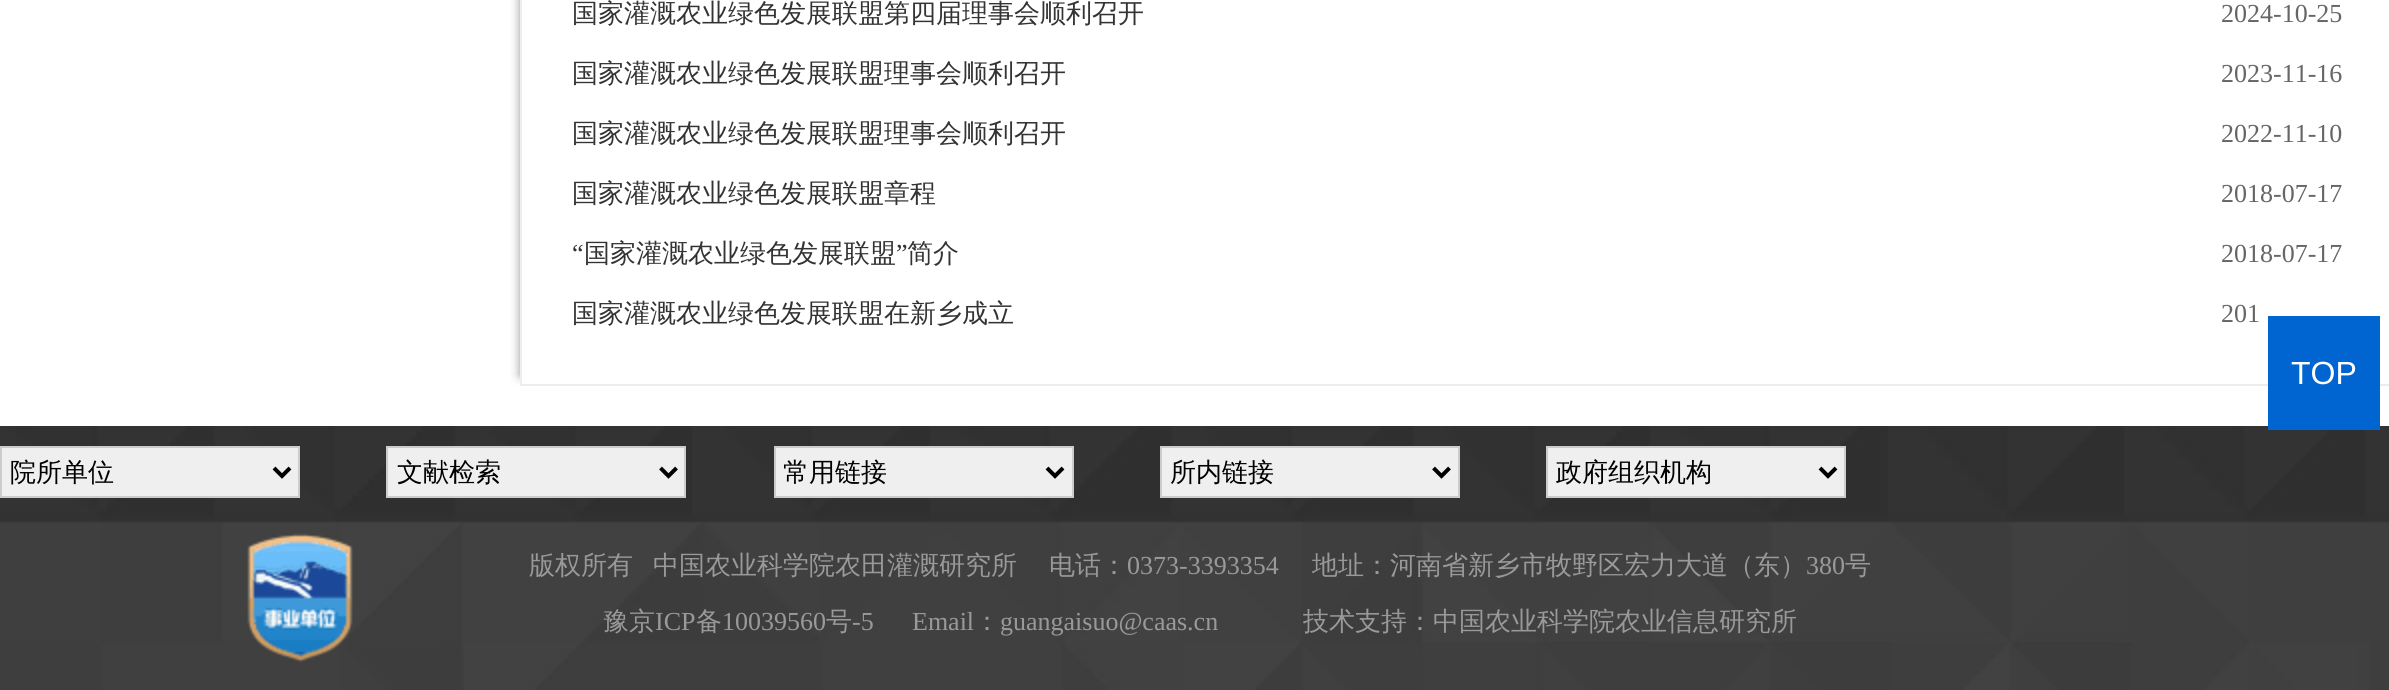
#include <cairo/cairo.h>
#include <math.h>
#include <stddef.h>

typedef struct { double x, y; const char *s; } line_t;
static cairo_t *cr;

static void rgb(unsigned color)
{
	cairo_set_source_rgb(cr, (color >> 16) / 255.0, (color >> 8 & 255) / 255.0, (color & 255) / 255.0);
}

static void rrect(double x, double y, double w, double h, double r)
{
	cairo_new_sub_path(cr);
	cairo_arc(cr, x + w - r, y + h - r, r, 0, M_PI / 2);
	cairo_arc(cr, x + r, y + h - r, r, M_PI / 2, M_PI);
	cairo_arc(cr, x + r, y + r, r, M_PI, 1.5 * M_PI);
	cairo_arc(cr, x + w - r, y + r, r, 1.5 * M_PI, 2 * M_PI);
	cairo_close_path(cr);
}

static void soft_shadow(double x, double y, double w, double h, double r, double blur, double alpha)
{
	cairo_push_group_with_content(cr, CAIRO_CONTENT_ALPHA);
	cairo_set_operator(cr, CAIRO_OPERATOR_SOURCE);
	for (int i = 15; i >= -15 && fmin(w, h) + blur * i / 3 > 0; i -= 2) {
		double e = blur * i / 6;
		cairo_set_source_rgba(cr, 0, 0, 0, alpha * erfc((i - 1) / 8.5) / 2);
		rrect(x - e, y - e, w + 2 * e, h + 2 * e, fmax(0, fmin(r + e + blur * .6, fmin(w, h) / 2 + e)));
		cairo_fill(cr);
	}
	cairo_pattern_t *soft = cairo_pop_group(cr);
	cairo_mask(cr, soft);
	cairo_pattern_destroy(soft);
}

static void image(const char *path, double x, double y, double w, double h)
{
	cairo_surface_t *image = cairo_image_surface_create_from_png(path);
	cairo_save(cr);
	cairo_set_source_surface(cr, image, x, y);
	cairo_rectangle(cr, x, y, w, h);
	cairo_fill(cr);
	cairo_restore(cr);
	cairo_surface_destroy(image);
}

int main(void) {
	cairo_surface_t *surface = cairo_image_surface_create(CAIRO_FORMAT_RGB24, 2389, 690);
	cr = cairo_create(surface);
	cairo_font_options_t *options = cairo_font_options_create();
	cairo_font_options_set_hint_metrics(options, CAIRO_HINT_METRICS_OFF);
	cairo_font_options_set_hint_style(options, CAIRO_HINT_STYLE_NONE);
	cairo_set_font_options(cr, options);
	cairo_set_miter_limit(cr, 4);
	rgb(0xffffff);
	cairo_paint(cr);
	cairo_save(cr);
	cairo_rectangle(cr, 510, 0, 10, 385);
	cairo_clip(cr);
	rgb(0x999999);
	soft_shadow(520, -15, 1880, 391, 0, 5, 1);
	cairo_restore(cr);
	cairo_rectangle(cr, 521, -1, 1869, 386);
	rgb(0xededed);
	cairo_stroke(cr);
	image("img/1.png", 0, 426, 2389, 264);
	rgb(0xefefef);
	cairo_rectangle(cr, 1, 447, 298, 50);
	cairo_fill_preserve(cr);
	rgb(0xcccccc);
	cairo_stroke(cr);
	cairo_new_path(cr);
	cairo_move_to(cr, 274, 468);
	cairo_line_to(cr, 282, 476);
	cairo_line_to(cr, 290, 468);
	rgb(0x000000);
	cairo_set_line_width(cr, 4);
	cairo_stroke(cr);
	rgb(0xefefef);
	cairo_rectangle(cr, 387, 447, 298, 50);
	cairo_fill_preserve(cr);
	rgb(0xcccccc);
	cairo_set_line_width(cr, 2);
	cairo_stroke(cr);
	cairo_new_path(cr);
	cairo_move_to(cr, 660.5, 468);
	cairo_line_to(cr, 668.5, 476);
	cairo_line_to(cr, 676.5, 468);
	rgb(0x000000);
	cairo_set_line_width(cr, 4);
	cairo_stroke(cr);
	rgb(0xefefef);
	cairo_rectangle(cr, 775, 447, 298, 50);
	cairo_fill_preserve(cr);
	rgb(0xcccccc);
	cairo_set_line_width(cr, 2);
	cairo_stroke(cr);
	cairo_new_path(cr);
	cairo_move_to(cr, 1047, 468);
	cairo_line_to(cr, 1055, 476);
	cairo_line_to(cr, 1063, 468);
	rgb(0x000000);
	cairo_set_line_width(cr, 4);
	cairo_stroke(cr);
	rgb(0xefefef);
	cairo_rectangle(cr, 1161, 447, 298, 50);
	cairo_fill_preserve(cr);
	rgb(0xcccccc);
	cairo_set_line_width(cr, 2);
	cairo_stroke(cr);
	cairo_new_path(cr);
	cairo_move_to(cr, 1433.5, 468);
	cairo_line_to(cr, 1441.5, 476);
	cairo_line_to(cr, 1449.5, 468);
	rgb(0x000000);
	cairo_set_line_width(cr, 4);
	cairo_stroke(cr);
	rgb(0xefefef);
	cairo_rectangle(cr, 1547, 447, 298, 50);
	cairo_fill_preserve(cr);
	rgb(0xcccccc);
	cairo_set_line_width(cr, 2);
	cairo_stroke(cr);
	cairo_new_path(cr);
	cairo_move_to(cr, 1820, 468);
	cairo_line_to(cr, 1828, 476);
	cairo_line_to(cr, 1836, 468);
	rgb(0x000000);
	cairo_set_line_width(cr, 4);
	cairo_stroke(cr);
	image("img/2.png", 247, 533, 106, 130);
	rgb(0x0065d0);
	cairo_rectangle(cr, 2268, 316, 112, 114);
	cairo_fill(cr);
	cairo_select_font_face(cr, "WenQuanYi Zen Hei Medium", CAIRO_FONT_SLANT_NORMAL, CAIRO_FONT_WEIGHT_NORMAL);
	cairo_set_font_size(cr, 26);
	rgb(0x333333);
	cairo_move_to(cr, 572, 22);
	cairo_show_text(cr, "国家灌溉农业绿色发展联盟第四届理事会顺利召开");
	cairo_select_font_face(cr, "Liberation Serif", CAIRO_FONT_SLANT_NORMAL, CAIRO_FONT_WEIGHT_NORMAL);
	rgb(0x666666);
	cairo_move_to(cr, 2221, 22);
	cairo_show_text(cr, "2024-10-25");
	cairo_select_font_face(cr, "WenQuanYi Zen Hei Medium", CAIRO_FONT_SLANT_NORMAL, CAIRO_FONT_WEIGHT_NORMAL);
	rgb(0x333333);
	cairo_move_to(cr, 572, 82);
	cairo_show_text(cr, "国家灌溉农业绿色发展联盟理事会顺利召开");
	cairo_select_font_face(cr, "Liberation Serif", CAIRO_FONT_SLANT_NORMAL, CAIRO_FONT_WEIGHT_NORMAL);
	rgb(0x666666);
	cairo_move_to(cr, 2221, 82);
	cairo_show_text(cr, "2023-11-16");
	cairo_select_font_face(cr, "WenQuanYi Zen Hei Medium", CAIRO_FONT_SLANT_NORMAL, CAIRO_FONT_WEIGHT_NORMAL);
	rgb(0x333333);
	cairo_move_to(cr, 572, 142);
	cairo_show_text(cr, "国家灌溉农业绿色发展联盟理事会顺利召开");
	cairo_select_font_face(cr, "Liberation Serif", CAIRO_FONT_SLANT_NORMAL, CAIRO_FONT_WEIGHT_NORMAL);
	rgb(0x666666);
	cairo_move_to(cr, 2221, 142);
	cairo_show_text(cr, "2022-11-10");
	cairo_select_font_face(cr, "WenQuanYi Zen Hei Medium", CAIRO_FONT_SLANT_NORMAL, CAIRO_FONT_WEIGHT_NORMAL);
	rgb(0x333333);
	cairo_move_to(cr, 572, 202);
	cairo_show_text(cr, "国家灌溉农业绿色发展联盟章程");
	cairo_select_font_face(cr, "Liberation Serif", CAIRO_FONT_SLANT_NORMAL, CAIRO_FONT_WEIGHT_NORMAL);
	rgb(0x666666);
	cairo_move_to(cr, 2221, 202);
	cairo_show_text(cr, "2018-07-17");
	rgb(0x333333);
	cairo_move_to(cr, 572, 262);
	cairo_show_text(cr, "“");
	cairo_select_font_face(cr, "WenQuanYi Zen Hei Medium", CAIRO_FONT_SLANT_NORMAL, CAIRO_FONT_WEIGHT_NORMAL);
	cairo_move_to(cr, 584, 262);
	cairo_show_text(cr, "国家灌溉农业绿色发展联盟");
	cairo_select_font_face(cr, "Liberation Serif", CAIRO_FONT_SLANT_NORMAL, CAIRO_FONT_WEIGHT_NORMAL);
	cairo_move_to(cr, 896, 262);
	cairo_show_text(cr, "”");
	cairo_select_font_face(cr, "WenQuanYi Zen Hei Medium", CAIRO_FONT_SLANT_NORMAL, CAIRO_FONT_WEIGHT_NORMAL);
	cairo_move_to(cr, 907, 262);
	cairo_show_text(cr, "简介");
	cairo_select_font_face(cr, "Liberation Serif", CAIRO_FONT_SLANT_NORMAL, CAIRO_FONT_WEIGHT_NORMAL);
	rgb(0x666666);
	cairo_move_to(cr, 2221, 262);
	cairo_show_text(cr, "2018-07-17");
	cairo_select_font_face(cr, "WenQuanYi Zen Hei Medium", CAIRO_FONT_SLANT_NORMAL, CAIRO_FONT_WEIGHT_NORMAL);
	rgb(0x333333);
	cairo_move_to(cr, 572, 322);
	cairo_show_text(cr, "国家灌溉农业绿色发展联盟在新乡成立");
	cairo_select_font_face(cr, "Liberation Serif", CAIRO_FONT_SLANT_NORMAL, CAIRO_FONT_WEIGHT_NORMAL);
	rgb(0x666666);
	cairo_move_to(cr, 2221, 322);
	cairo_show_text(cr, "201");
	cairo_select_font_face(cr, "WenQuanYi Zen Hei Medium", CAIRO_FONT_SLANT_NORMAL, CAIRO_FONT_WEIGHT_NORMAL);
	rgb(0x000000);
	cairo_move_to(cr, 10, 481);
	cairo_show_text(cr, "院所单位");
	cairo_move_to(cr, 397, 481);
	cairo_show_text(cr, "文献检索");
	cairo_save(cr);
	cairo_rectangle(cr, 784, 456, 256, 34);
	cairo_clip(cr);
	cairo_move_to(cr, 783, 481);
	cairo_show_text(cr, "常用链接");
	cairo_restore(cr);
	cairo_move_to(cr, 1170, 481);
	cairo_show_text(cr, "所内链接");
	cairo_move_to(cr, 1556, 481);
	cairo_show_text(cr, "政府组织机构");
	rgb(0x999999);
	{
		static const line_t items[] = {
			{529, 574, "版权所有"},
			{653, 574, "中国农业科学院农田灌溉研究所"},
			{1049, 574, "电话："},
		};
		for (size_t i = 0; i < sizeof items / sizeof *items; i++) {
			cairo_move_to(cr, items[i].x, items[i].y);
			cairo_show_text(cr, items[i].s);
		}
	}
	cairo_select_font_face(cr, "Liberation Serif", CAIRO_FONT_SLANT_NORMAL, CAIRO_FONT_WEIGHT_NORMAL);
	cairo_move_to(cr, 1127, 574);
	cairo_show_text(cr, "0373-3393354");
	cairo_select_font_face(cr, "WenQuanYi Zen Hei Medium", CAIRO_FONT_SLANT_NORMAL, CAIRO_FONT_WEIGHT_NORMAL);
	cairo_move_to(cr, 1312, 574);
	cairo_show_text(cr, "地址：河南省新乡市牧野区宏力大道（东）");
	cairo_select_font_face(cr, "Liberation Serif", CAIRO_FONT_SLANT_NORMAL, CAIRO_FONT_WEIGHT_NORMAL);
	cairo_move_to(cr, 1806, 574);
	cairo_show_text(cr, "380");
	cairo_select_font_face(cr, "WenQuanYi Zen Hei Medium", CAIRO_FONT_SLANT_NORMAL, CAIRO_FONT_WEIGHT_NORMAL);
	cairo_move_to(cr, 1845, 574);
	cairo_show_text(cr, "号");
	cairo_move_to(cr, 603, 630);
	cairo_show_text(cr, "豫京");
	cairo_select_font_face(cr, "Liberation Serif", CAIRO_FONT_SLANT_NORMAL, CAIRO_FONT_WEIGHT_NORMAL);
	cairo_move_to(cr, 655, 630);
	cairo_show_text(cr, "ICP");
	cairo_select_font_face(cr, "WenQuanYi Zen Hei Medium", CAIRO_FONT_SLANT_NORMAL, CAIRO_FONT_WEIGHT_NORMAL);
	cairo_move_to(cr, 696, 630);
	cairo_show_text(cr, "备");
	cairo_select_font_face(cr, "Liberation Serif", CAIRO_FONT_SLANT_NORMAL, CAIRO_FONT_WEIGHT_NORMAL);
	cairo_move_to(cr, 722, 630);
	cairo_show_text(cr, "10039560");
	cairo_select_font_face(cr, "WenQuanYi Zen Hei Medium", CAIRO_FONT_SLANT_NORMAL, CAIRO_FONT_WEIGHT_NORMAL);
	cairo_move_to(cr, 826, 630);
	cairo_show_text(cr, "号");
	cairo_select_font_face(cr, "Liberation Serif", CAIRO_FONT_SLANT_NORMAL, CAIRO_FONT_WEIGHT_NORMAL);
	cairo_move_to(cr, 852, 630);
	cairo_show_text(cr, "-5");
	cairo_move_to(cr, 912, 630);
	cairo_show_text(cr, "Email");
	cairo_select_font_face(cr, "WenQuanYi Zen Hei Medium", CAIRO_FONT_SLANT_NORMAL, CAIRO_FONT_WEIGHT_NORMAL);
	cairo_move_to(cr, 974, 630);
	cairo_show_text(cr, "：");
	cairo_select_font_face(cr, "Liberation Serif", CAIRO_FONT_SLANT_NORMAL, CAIRO_FONT_WEIGHT_NORMAL);
	cairo_move_to(cr, 1000, 630);
	cairo_show_text(cr, "guangaisuo@caas.cn");
	cairo_select_font_face(cr, "WenQuanYi Zen Hei Medium", CAIRO_FONT_SLANT_NORMAL, CAIRO_FONT_WEIGHT_NORMAL);
	cairo_move_to(cr, 1303, 630);
	cairo_show_text(cr, "技术支持：中国农业科学院农业信息研究所");
	cairo_select_font_face(cr, "Liberation Sans", CAIRO_FONT_SLANT_NORMAL, CAIRO_FONT_WEIGHT_NORMAL);
	cairo_set_font_size(cr, 32);
	rgb(0xffffff);
	cairo_move_to(cr, 2291, 384);
	cairo_show_text(cr, "TOP");
	cairo_surface_write_to_png(surface, "page.png");
	cairo_font_options_destroy(options);
	cairo_destroy(cr);
	cairo_surface_destroy(surface);
	return 0;
}
